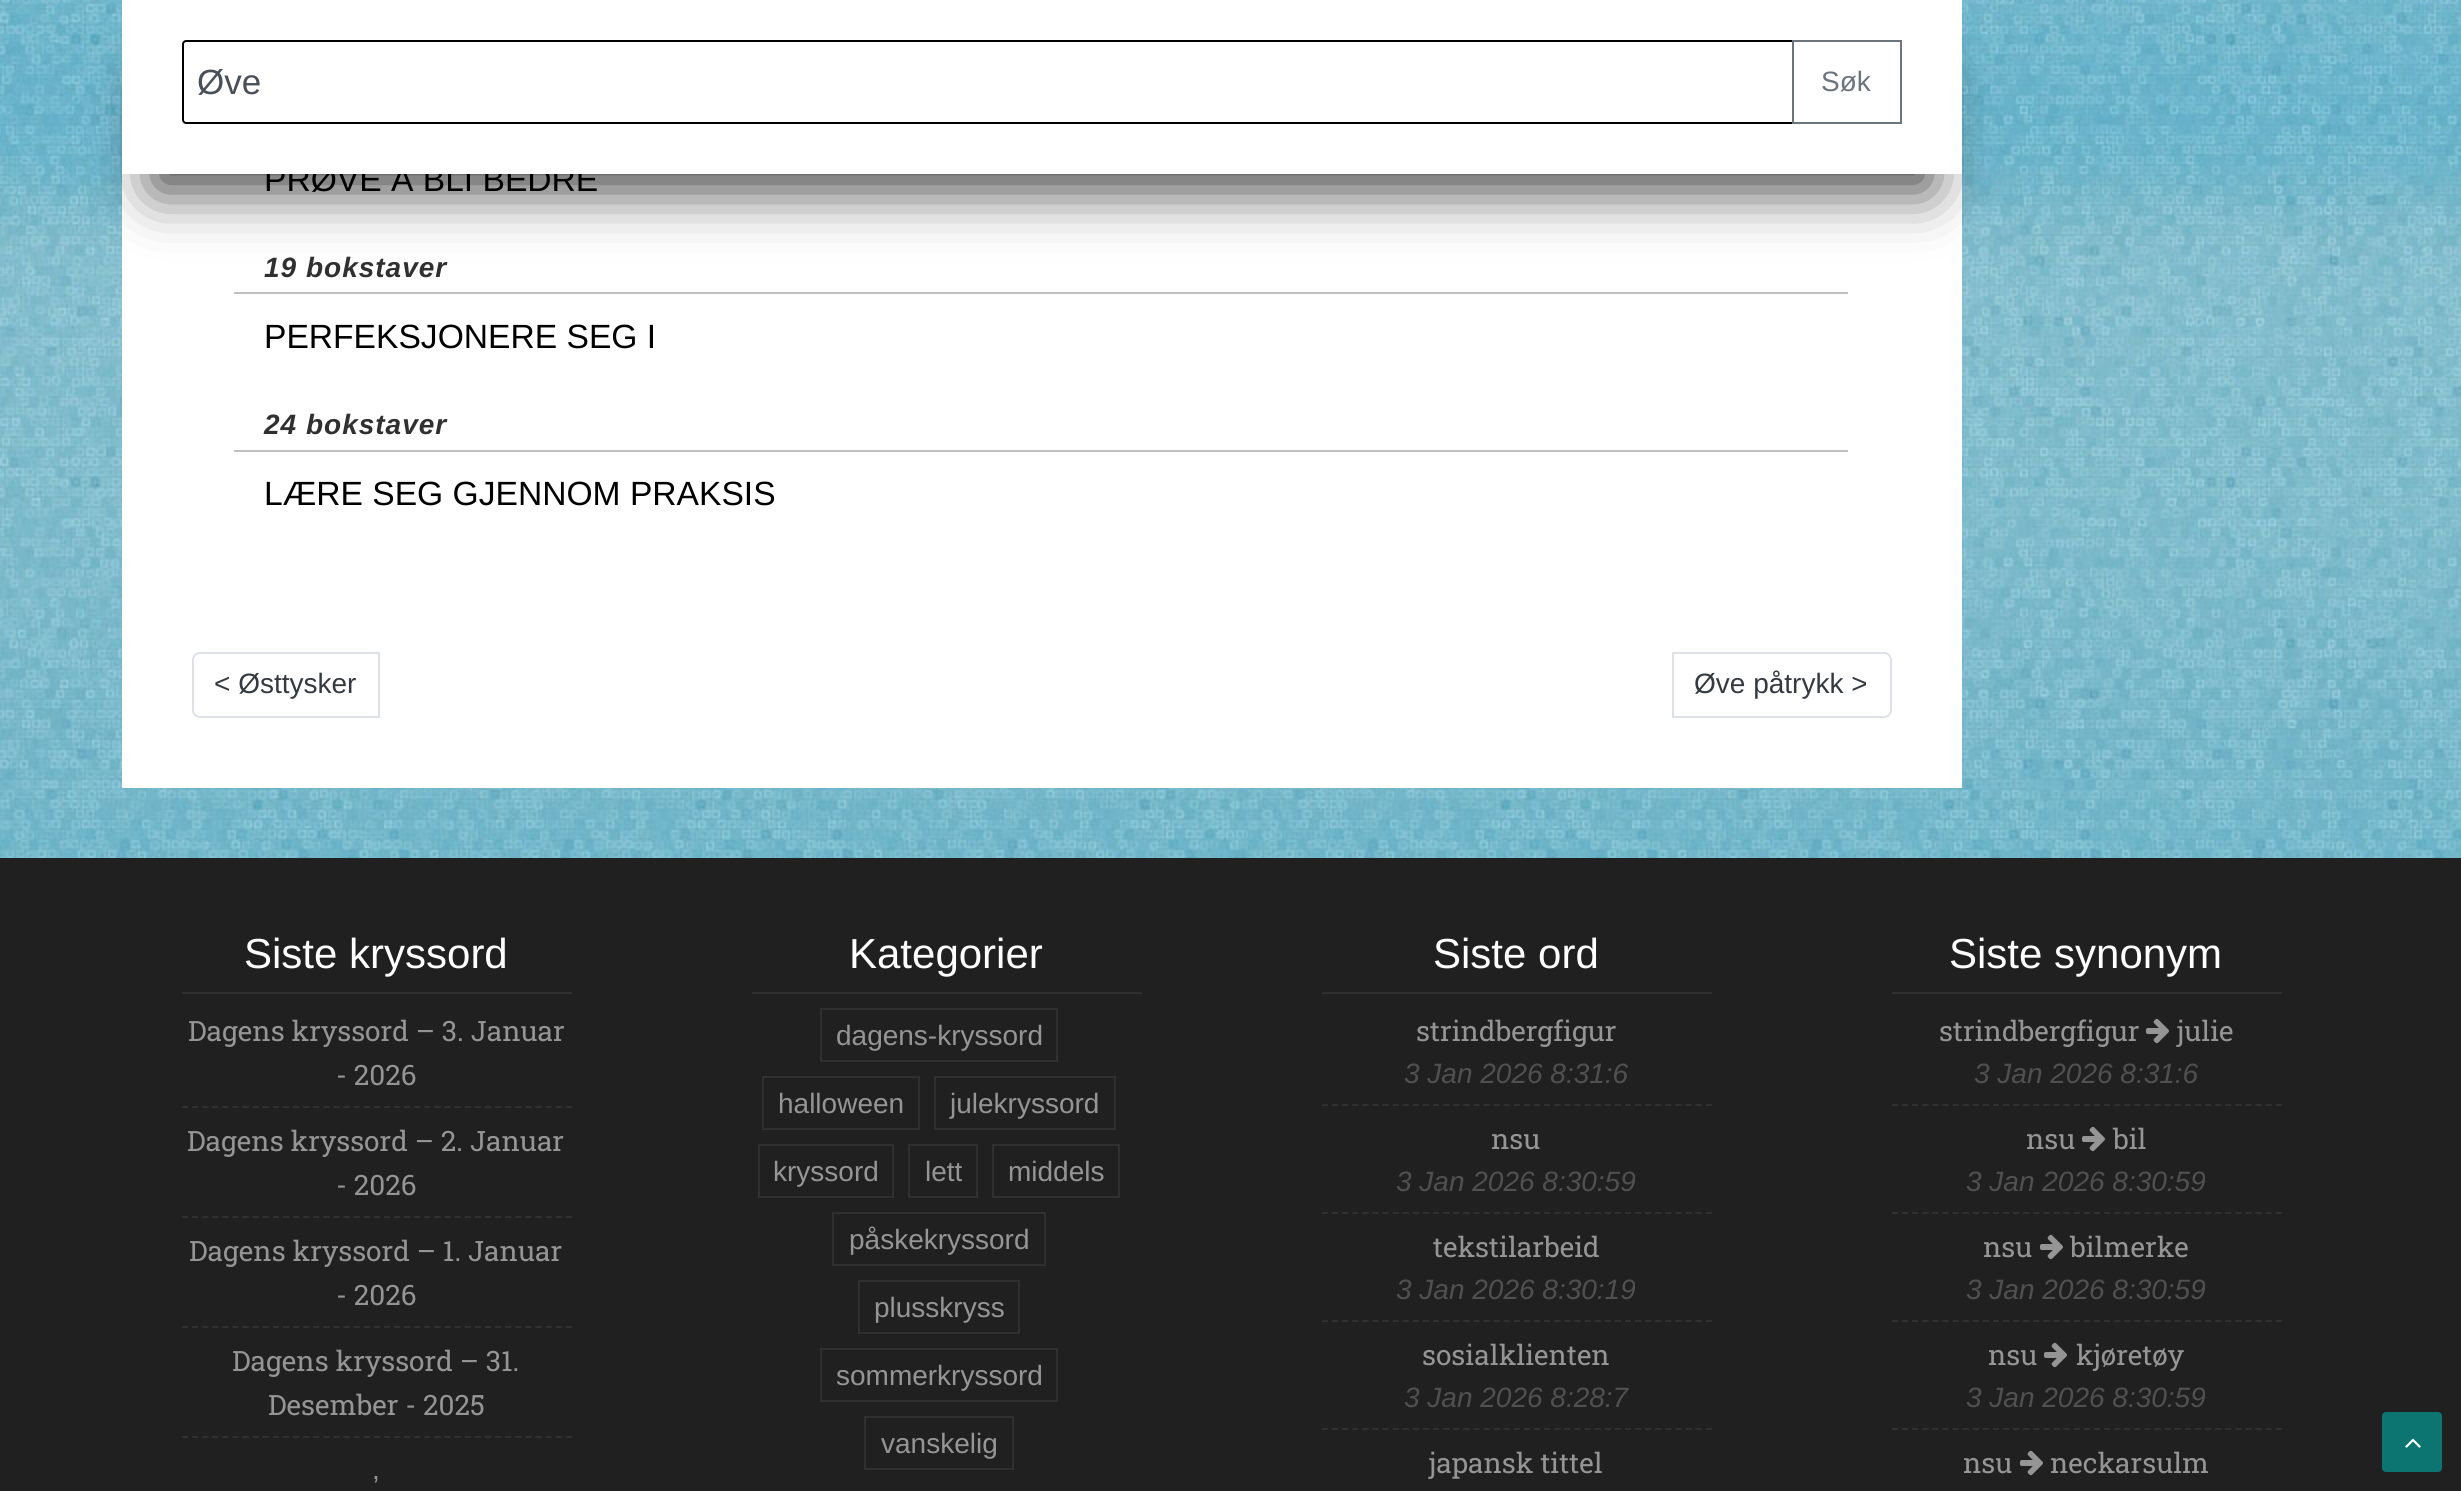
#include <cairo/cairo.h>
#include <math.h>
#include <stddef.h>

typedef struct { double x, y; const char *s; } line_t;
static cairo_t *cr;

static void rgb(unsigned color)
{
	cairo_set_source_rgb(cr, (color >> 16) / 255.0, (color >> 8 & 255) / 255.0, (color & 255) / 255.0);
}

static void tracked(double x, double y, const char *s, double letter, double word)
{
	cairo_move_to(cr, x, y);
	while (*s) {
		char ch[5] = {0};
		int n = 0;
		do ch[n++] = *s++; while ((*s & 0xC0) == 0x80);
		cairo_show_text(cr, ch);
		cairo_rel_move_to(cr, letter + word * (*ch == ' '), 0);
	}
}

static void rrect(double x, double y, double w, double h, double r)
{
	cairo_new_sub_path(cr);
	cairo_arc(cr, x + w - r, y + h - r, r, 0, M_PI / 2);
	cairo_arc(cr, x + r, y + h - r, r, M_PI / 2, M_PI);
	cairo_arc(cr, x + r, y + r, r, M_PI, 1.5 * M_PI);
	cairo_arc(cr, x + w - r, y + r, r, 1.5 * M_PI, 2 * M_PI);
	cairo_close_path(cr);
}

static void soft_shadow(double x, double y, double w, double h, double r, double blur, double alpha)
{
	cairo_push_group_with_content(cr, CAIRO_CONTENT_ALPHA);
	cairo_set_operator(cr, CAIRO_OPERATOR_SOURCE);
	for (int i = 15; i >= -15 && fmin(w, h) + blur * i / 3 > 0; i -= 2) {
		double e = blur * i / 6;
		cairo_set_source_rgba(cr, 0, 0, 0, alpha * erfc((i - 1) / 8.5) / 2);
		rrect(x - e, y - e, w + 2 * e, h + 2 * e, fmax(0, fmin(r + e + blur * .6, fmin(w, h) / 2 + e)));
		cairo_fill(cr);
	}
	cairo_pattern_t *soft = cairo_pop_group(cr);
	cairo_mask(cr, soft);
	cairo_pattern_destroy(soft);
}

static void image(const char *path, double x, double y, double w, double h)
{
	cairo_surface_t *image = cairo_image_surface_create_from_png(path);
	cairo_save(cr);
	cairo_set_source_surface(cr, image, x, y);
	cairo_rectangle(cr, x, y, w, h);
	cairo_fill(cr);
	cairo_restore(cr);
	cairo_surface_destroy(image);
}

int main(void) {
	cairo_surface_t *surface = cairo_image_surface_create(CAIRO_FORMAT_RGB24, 2461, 1491);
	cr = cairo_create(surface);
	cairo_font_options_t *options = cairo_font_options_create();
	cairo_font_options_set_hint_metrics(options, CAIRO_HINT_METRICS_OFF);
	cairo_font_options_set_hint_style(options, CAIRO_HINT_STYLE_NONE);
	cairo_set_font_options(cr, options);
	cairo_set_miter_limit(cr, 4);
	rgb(0xffffff);
	cairo_paint(cr);
	image("img/1.png", 0, 0, 2461, 858);
	rgb(0xffffff);
	cairo_rectangle(cr, 122, 174, 1840, 614);
	cairo_fill(cr);
	rgb(0x000000);
	soft_shadow(154, 80, 1776, 110, 0, 29, 0.75);
	rgb(0xc0c0c0);
	cairo_rectangle(cr, 234, 292, 1614, 2);
	cairo_fill(cr);
	cairo_rectangle(cr, 234, 450, 1614, 2);
	cairo_fill(cr);
	cairo_new_path(cr);
	cairo_move_to(cr, 200, 653);
	cairo_line_to(cr, 379, 653);
	cairo_line_to(cr, 379, 717);
	cairo_line_to(cr, 200, 717);
	cairo_curve_to(cr, 196, 717, 193, 714, 193, 710);
	cairo_line_to(cr, 193, 660);
	cairo_curve_to(cr, 193, 656, 196, 653, 200, 653);
	cairo_close_path(cr);
	rgb(0xdee2e6);
	cairo_stroke(cr);
	cairo_new_path(cr);
	cairo_move_to(cr, 1673, 653);
	cairo_line_to(cr, 1884, 653);
	cairo_curve_to(cr, 1888, 653, 1891, 656, 1891, 660);
	cairo_line_to(cr, 1891, 710);
	cairo_curve_to(cr, 1891, 714, 1888, 717, 1884, 717);
	cairo_line_to(cr, 1673, 717);
	cairo_close_path(cr);
	cairo_stroke(cr);
	rgb(0x202020);
	cairo_rectangle(cr, 0, 858, 2461, 633);
	cairo_fill(cr);
	rgb(0x303030);
	cairo_rectangle(cr, 182, 992, 390, 2);
	cairo_fill(cr);
	cairo_new_path(cr);
	cairo_move_to(cr, 182, 1107);
	cairo_line_to(cr, 572, 1107);
	cairo_set_dash(cr, (double[]){6, 4.1}, 2, 0);
	cairo_stroke(cr);
	cairo_new_path(cr);
	cairo_move_to(cr, 182, 1217);
	cairo_line_to(cr, 572, 1217);
	cairo_stroke(cr);
	cairo_new_path(cr);
	cairo_move_to(cr, 182, 1327);
	cairo_line_to(cr, 572, 1327);
	cairo_stroke(cr);
	cairo_new_path(cr);
	cairo_move_to(cr, 182, 1437);
	cairo_line_to(cr, 572, 1437);
	cairo_stroke(cr);
	cairo_rectangle(cr, 752, 992, 390, 2);
	cairo_fill(cr);
	cairo_rectangle(cr, 821, 1009, 236, 52);
	cairo_set_dash(cr, NULL, 0, 0);
	cairo_stroke(cr);
	cairo_rectangle(cr, 763, 1077, 156, 52);
	cairo_stroke(cr);
	cairo_rectangle(cr, 935, 1077, 180, 52);
	cairo_stroke(cr);
	cairo_rectangle(cr, 759, 1145, 134, 52);
	cairo_stroke(cr);
	cairo_rectangle(cr, 909, 1145, 68, 52);
	cairo_stroke(cr);
	cairo_rectangle(cr, 993, 1145, 126, 52);
	cairo_stroke(cr);
	cairo_rectangle(cr, 833, 1213, 212, 52);
	cairo_stroke(cr);
	cairo_rectangle(cr, 859, 1281, 160, 52);
	cairo_stroke(cr);
	cairo_rectangle(cr, 821, 1349, 236, 52);
	cairo_stroke(cr);
	cairo_rectangle(cr, 865, 1417, 148, 52);
	cairo_stroke(cr);
	cairo_rectangle(cr, 1322, 992, 390, 2);
	cairo_fill(cr);
	cairo_new_path(cr);
	cairo_move_to(cr, 1322, 1105);
	cairo_line_to(cr, 1712, 1105);
	cairo_set_dash(cr, (double[]){6, 4.1}, 2, 0);
	cairo_stroke(cr);
	cairo_new_path(cr);
	cairo_move_to(cr, 1322, 1213);
	cairo_line_to(cr, 1712, 1213);
	cairo_stroke(cr);
	cairo_new_path(cr);
	cairo_move_to(cr, 1322, 1321);
	cairo_line_to(cr, 1712, 1321);
	cairo_stroke(cr);
	cairo_new_path(cr);
	cairo_move_to(cr, 1322, 1429);
	cairo_line_to(cr, 1712, 1429);
	cairo_stroke(cr);
	cairo_rectangle(cr, 1892, 992, 390, 2);
	cairo_fill(cr);
	cairo_new_path(cr);
	cairo_move_to(cr, 1892, 1105);
	cairo_line_to(cr, 2282, 1105);
	cairo_stroke(cr);
	image("img/2.png", 2146, 1018, 23, 26);
	cairo_new_path(cr);
	cairo_move_to(cr, 1892, 1213);
	cairo_line_to(cr, 2282, 1213);
	cairo_stroke(cr);
	image("img/2.png", 2082, 1126, 23, 26);
	cairo_new_path(cr);
	cairo_move_to(cr, 1892, 1321);
	cairo_line_to(cr, 2282, 1321);
	cairo_stroke(cr);
	image("img/2.png", 2040, 1234, 23, 26);
	cairo_new_path(cr);
	cairo_move_to(cr, 1892, 1429);
	cairo_line_to(cr, 2282, 1429);
	cairo_stroke(cr);
	image("img/2.png", 2044, 1342, 23, 26);
	image("img/2.png", 2020, 1450, 23, 26);
	rgb(0x0d7571);
	rrect(2382, 1412, 60, 60, 4);
	cairo_fill(cr);
	image("img/3.png", 2405, 1438, 16, 10);
	cairo_select_font_face(cr, "Liberation Sans", CAIRO_FONT_SLANT_NORMAL, CAIRO_FONT_WEIGHT_NORMAL);
	cairo_set_font_size(cr, 33.6);
	rgb(0x000000);
	cairo_move_to(cr, 264, 191);
	cairo_show_text(cr, "PRØVE Å BLI BEDRE");
	rgb(0xffffff);
	cairo_rectangle(cr, 122, 0, 1840, 174);
	cairo_fill(cr);
	cairo_new_path(cr);
	cairo_move_to(cr, 186, 41);
	cairo_line_to(cr, 1793, 41);
	cairo_line_to(cr, 1793, 123);
	cairo_line_to(cr, 186, 123);
	cairo_curve_to(cr, 184.5, 123, 183, 121.5, 183, 120);
	cairo_line_to(cr, 183, 44);
	cairo_curve_to(cr, 183, 42.5, 184.5, 41, 186, 41);
	cairo_close_path(cr);
	rgb(0x000000);
	cairo_set_dash(cr, NULL, 0, 0);
	cairo_stroke(cr);
	cairo_rectangle(cr, 1793, 41, 108, 82);
	rgb(0x6c757d);
	cairo_stroke(cr);
	cairo_set_font_size(cr, 28);
	cairo_move_to(cr, 1821, 91);
	cairo_show_text(cr, "Søk");
	cairo_set_font_size(cr, 35);
	rgb(0x495057);
	cairo_move_to(cr, 197, 94);
	cairo_show_text(cr, "Øve");
	cairo_select_font_face(cr, "Liberation Sans", CAIRO_FONT_SLANT_ITALIC, CAIRO_FONT_WEIGHT_BOLD);
	cairo_set_font_size(cr, 28);
	rgb(0x303030);
	tracked(264, 277, "19 bokstaver", 1, 0);
	cairo_select_font_face(cr, "Liberation Sans", CAIRO_FONT_SLANT_NORMAL, CAIRO_FONT_WEIGHT_NORMAL);
	cairo_set_font_size(cr, 33.6);
	rgb(0x000000);
	cairo_move_to(cr, 264, 348);
	cairo_show_text(cr, "PERFEKSJONERE SEG I");
	cairo_select_font_face(cr, "Liberation Sans", CAIRO_FONT_SLANT_ITALIC, CAIRO_FONT_WEIGHT_BOLD);
	cairo_set_font_size(cr, 28);
	rgb(0x303030);
	tracked(264, 434, "24 bokstaver", 1, 0);
	cairo_select_font_face(cr, "Liberation Sans", CAIRO_FONT_SLANT_NORMAL, CAIRO_FONT_WEIGHT_NORMAL);
	cairo_set_font_size(cr, 33.6);
	rgb(0x000000);
	cairo_move_to(cr, 264, 505);
	cairo_show_text(cr, "LÆRE SEG GJENNOM PRAKSIS");
	cairo_set_font_size(cr, 28);
	rgb(0x343a40);
	cairo_move_to(cr, 214, 693);
	cairo_show_text(cr, "< Østtysker");
	cairo_move_to(cr, 1694, 693);
	cairo_show_text(cr, "Øve påtrykk >");
	cairo_set_font_size(cr, 42);
	rgb(0xffffff);
	cairo_move_to(cr, 244, 968);
	cairo_show_text(cr, "Siste kryssord");
	cairo_select_font_face(cr, "Roboto Slab", CAIRO_FONT_SLANT_NORMAL, CAIRO_FONT_WEIGHT_NORMAL);
	cairo_set_font_size(cr, 28);
	rgb(0x959595);
	{
		static const line_t items[] = {
			{188, 1041, "Dagens kryssord – 3. Januar"},
			{336, 1085, "- 2026"},
			{187, 1151, "Dagens kryssord – 2. Januar"},
			{336, 1195, "- 2026"},
			{189, 1261, "Dagens kryssord – 1. Januar"},
			{336, 1305, "- 2026"},
			{232, 1371, "Dagens kryssord – 31."},
			{268, 1415, "Desember - 2025"},
		};
		for (size_t i = 0; i < sizeof items / sizeof *items; i++) {
			cairo_move_to(cr, items[i].x, items[i].y);
			cairo_show_text(cr, items[i].s);
		}
	}
	cairo_select_font_face(cr, "Liberation Sans", CAIRO_FONT_SLANT_NORMAL, CAIRO_FONT_WEIGHT_NORMAL);
	cairo_move_to(cr, 372, 1479);
	cairo_show_text(cr, ",");
	cairo_set_font_size(cr, 42);
	rgb(0xffffff);
	cairo_move_to(cr, 849, 968);
	cairo_show_text(cr, "Kategorier");
	cairo_set_font_size(cr, 28);
	rgb(0x959595);
	{
		static const line_t items[] = {
			{836, 1045, "dagens-kryssord"},
			{778, 1113, "halloween"},
			{950, 1113, "julekryssord"},
			{773, 1181, "kryssord"},
			{925, 1181, "lett"},
			{1008, 1181, "middels"},
			{849, 1249, "påskekryssord"},
			{874, 1317, "plusskryss"},
			{836, 1385, "sommerkryssord"},
			{881, 1453, "vanskelig"},
		};
		for (size_t i = 0; i < sizeof items / sizeof *items; i++) {
			cairo_move_to(cr, items[i].x, items[i].y);
			cairo_show_text(cr, items[i].s);
		}
	}
	cairo_set_font_size(cr, 42);
	rgb(0xffffff);
	cairo_move_to(cr, 1433, 968);
	cairo_show_text(cr, "Siste ord");
	cairo_select_font_face(cr, "Roboto Slab", CAIRO_FONT_SLANT_NORMAL, CAIRO_FONT_WEIGHT_NORMAL);
	cairo_set_font_size(cr, 28);
	rgb(0x959595);
	cairo_move_to(cr, 1416, 1041);
	cairo_show_text(cr, "strindbergfigur");
	cairo_select_font_face(cr, "Liberation Sans", CAIRO_FONT_SLANT_ITALIC, CAIRO_FONT_WEIGHT_NORMAL);
	rgb(0x505050);
	cairo_move_to(cr, 1404, 1083);
	cairo_show_text(cr, "3 Jan 2026 8:31:6");
	cairo_select_font_face(cr, "Roboto Slab", CAIRO_FONT_SLANT_NORMAL, CAIRO_FONT_WEIGHT_NORMAL);
	rgb(0x959595);
	cairo_move_to(cr, 1491, 1149);
	cairo_show_text(cr, "nsu");
	cairo_select_font_face(cr, "Liberation Sans", CAIRO_FONT_SLANT_ITALIC, CAIRO_FONT_WEIGHT_NORMAL);
	rgb(0x505050);
	cairo_move_to(cr, 1396, 1191);
	cairo_show_text(cr, "3 Jan 2026 8:30:59");
	cairo_select_font_face(cr, "Roboto Slab", CAIRO_FONT_SLANT_NORMAL, CAIRO_FONT_WEIGHT_NORMAL);
	rgb(0x959595);
	cairo_move_to(cr, 1433, 1257);
	cairo_show_text(cr, "tekstilarbeid");
	cairo_select_font_face(cr, "Liberation Sans", CAIRO_FONT_SLANT_ITALIC, CAIRO_FONT_WEIGHT_NORMAL);
	rgb(0x505050);
	cairo_move_to(cr, 1396, 1299);
	cairo_show_text(cr, "3 Jan 2026 8:30:19");
	cairo_select_font_face(cr, "Roboto Slab", CAIRO_FONT_SLANT_NORMAL, CAIRO_FONT_WEIGHT_NORMAL);
	rgb(0x959595);
	cairo_move_to(cr, 1422, 1365);
	cairo_show_text(cr, "sosialklienten");
	cairo_select_font_face(cr, "Liberation Sans", CAIRO_FONT_SLANT_ITALIC, CAIRO_FONT_WEIGHT_NORMAL);
	rgb(0x505050);
	cairo_move_to(cr, 1404, 1407);
	cairo_show_text(cr, "3 Jan 2026 8:28:7");
	cairo_select_font_face(cr, "Roboto Slab", CAIRO_FONT_SLANT_NORMAL, CAIRO_FONT_WEIGHT_NORMAL);
	rgb(0x959595);
	cairo_move_to(cr, 1429, 1473);
	cairo_show_text(cr, "japansk tittel");
	cairo_select_font_face(cr, "Liberation Sans", CAIRO_FONT_SLANT_NORMAL, CAIRO_FONT_WEIGHT_NORMAL);
	cairo_set_font_size(cr, 42);
	rgb(0xffffff);
	cairo_move_to(cr, 1949, 968);
	cairo_show_text(cr, "Siste synonym");
	cairo_select_font_face(cr, "Roboto Slab", CAIRO_FONT_SLANT_NORMAL, CAIRO_FONT_WEIGHT_NORMAL);
	cairo_set_font_size(cr, 28);
	rgb(0x959595);
	cairo_move_to(cr, 1939, 1041);
	cairo_show_text(cr, "strindbergfigur");
	cairo_move_to(cr, 2177, 1041);
	cairo_show_text(cr, "julie");
	cairo_select_font_face(cr, "Liberation Sans", CAIRO_FONT_SLANT_ITALIC, CAIRO_FONT_WEIGHT_NORMAL);
	rgb(0x505050);
	cairo_move_to(cr, 1974, 1083);
	cairo_show_text(cr, "3 Jan 2026 8:31:6");
	cairo_select_font_face(cr, "Roboto Slab", CAIRO_FONT_SLANT_NORMAL, CAIRO_FONT_WEIGHT_NORMAL);
	rgb(0x959595);
	cairo_move_to(cr, 2026, 1149);
	cairo_show_text(cr, "nsu");
	cairo_move_to(cr, 2113, 1149);
	cairo_show_text(cr, "bil");
	cairo_select_font_face(cr, "Liberation Sans", CAIRO_FONT_SLANT_ITALIC, CAIRO_FONT_WEIGHT_NORMAL);
	rgb(0x505050);
	cairo_move_to(cr, 1966, 1191);
	cairo_show_text(cr, "3 Jan 2026 8:30:59");
	cairo_select_font_face(cr, "Roboto Slab", CAIRO_FONT_SLANT_NORMAL, CAIRO_FONT_WEIGHT_NORMAL);
	rgb(0x959595);
	cairo_move_to(cr, 1983, 1257);
	cairo_show_text(cr, "nsu");
	cairo_move_to(cr, 2070, 1257);
	cairo_show_text(cr, "bilmerke");
	cairo_select_font_face(cr, "Liberation Sans", CAIRO_FONT_SLANT_ITALIC, CAIRO_FONT_WEIGHT_NORMAL);
	rgb(0x505050);
	cairo_move_to(cr, 1966, 1299);
	cairo_show_text(cr, "3 Jan 2026 8:30:59");
	cairo_select_font_face(cr, "Roboto Slab", CAIRO_FONT_SLANT_NORMAL, CAIRO_FONT_WEIGHT_NORMAL);
	rgb(0x959595);
	cairo_move_to(cr, 1988, 1365);
	cairo_show_text(cr, "nsu");
	cairo_move_to(cr, 2076, 1365);
	cairo_show_text(cr, "kjøretøy");
	cairo_select_font_face(cr, "Liberation Sans", CAIRO_FONT_SLANT_ITALIC, CAIRO_FONT_WEIGHT_NORMAL);
	rgb(0x505050);
	cairo_move_to(cr, 1966, 1407);
	cairo_show_text(cr, "3 Jan 2026 8:30:59");
	cairo_select_font_face(cr, "Roboto Slab", CAIRO_FONT_SLANT_NORMAL, CAIRO_FONT_WEIGHT_NORMAL);
	rgb(0x959595);
	cairo_move_to(cr, 1963, 1473);
	cairo_show_text(cr, "nsu");
	cairo_move_to(cr, 2050, 1473);
	cairo_show_text(cr, "neckarsulm");
	cairo_surface_write_to_png(surface, "page.png");
	cairo_font_options_destroy(options);
	cairo_destroy(cr);
	cairo_surface_destroy(surface);
	return 0;
}
